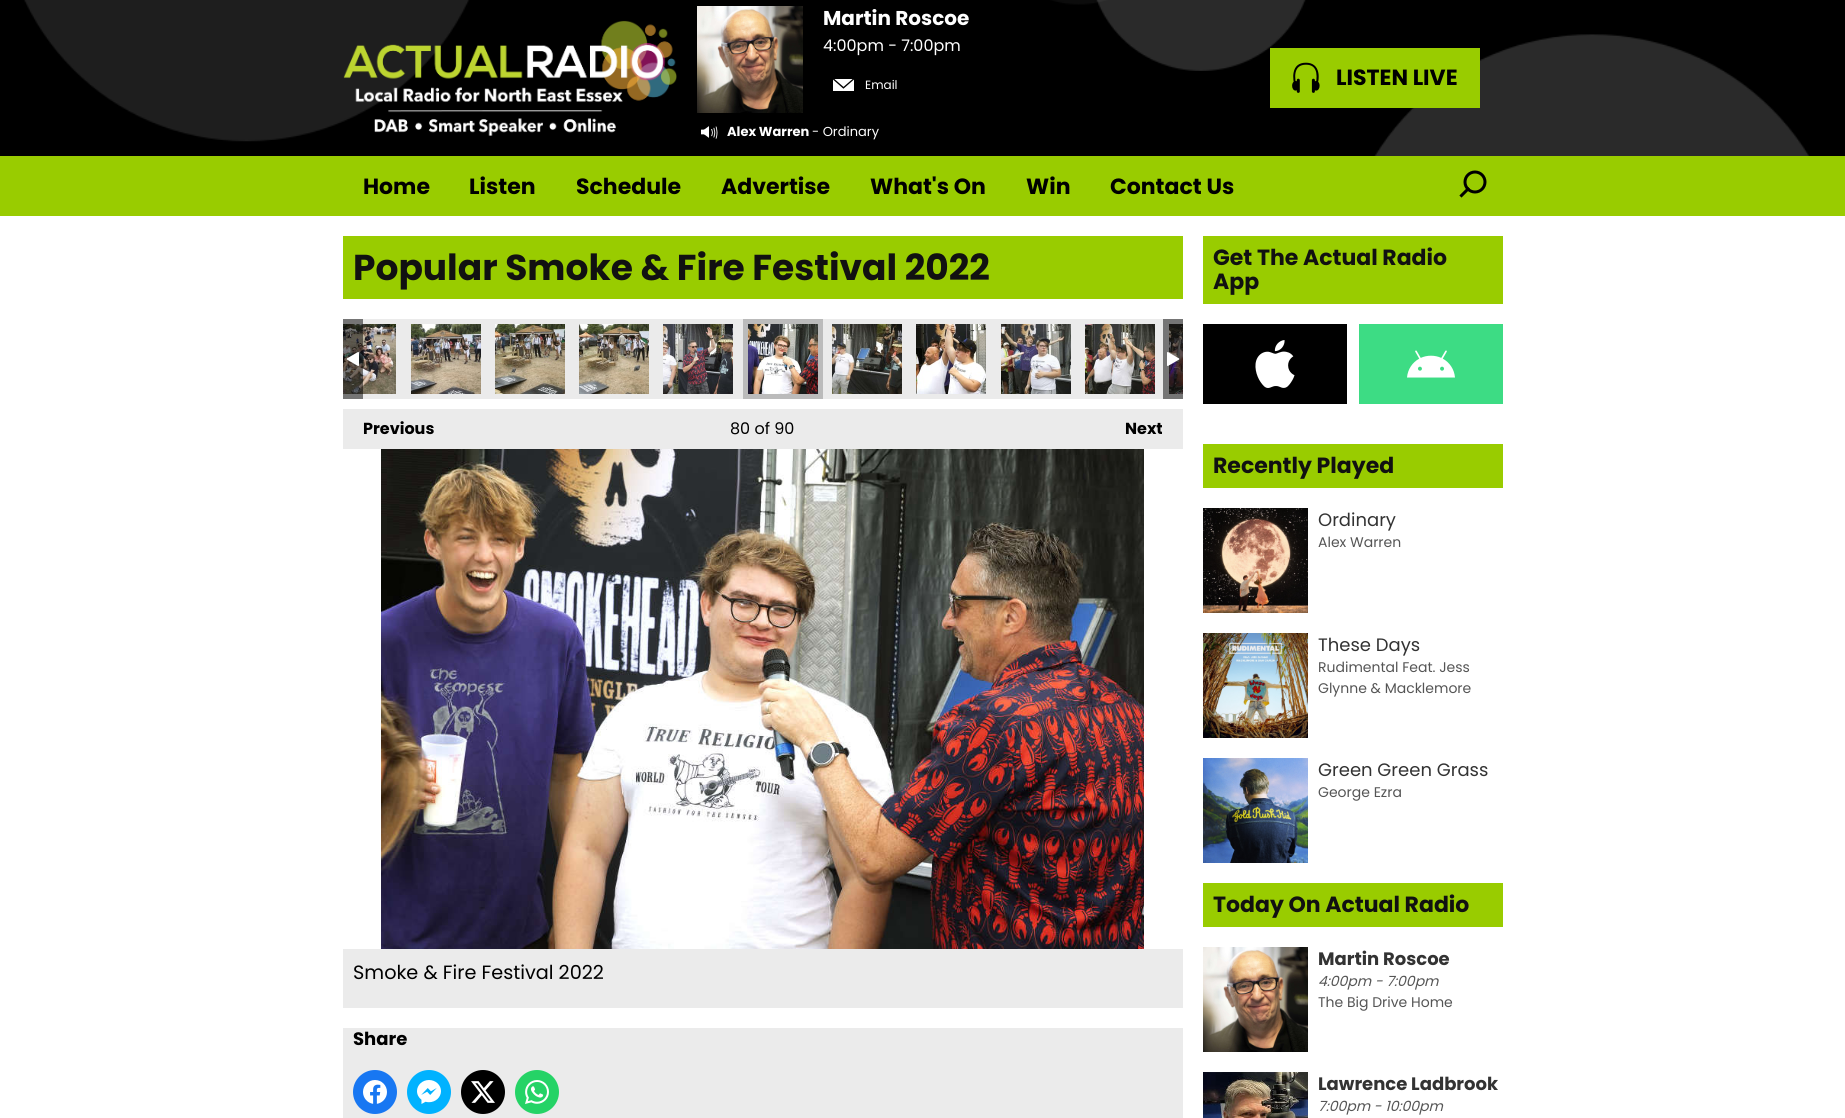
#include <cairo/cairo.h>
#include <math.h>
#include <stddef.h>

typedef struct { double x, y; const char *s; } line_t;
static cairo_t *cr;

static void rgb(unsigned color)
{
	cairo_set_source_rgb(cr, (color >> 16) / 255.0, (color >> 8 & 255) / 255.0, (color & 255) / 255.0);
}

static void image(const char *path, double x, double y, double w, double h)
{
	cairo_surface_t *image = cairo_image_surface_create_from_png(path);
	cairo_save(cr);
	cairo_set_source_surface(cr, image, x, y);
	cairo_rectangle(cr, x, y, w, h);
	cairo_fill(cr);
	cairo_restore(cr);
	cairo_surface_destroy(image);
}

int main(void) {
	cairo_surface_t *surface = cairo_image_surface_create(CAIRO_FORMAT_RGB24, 1845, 1118);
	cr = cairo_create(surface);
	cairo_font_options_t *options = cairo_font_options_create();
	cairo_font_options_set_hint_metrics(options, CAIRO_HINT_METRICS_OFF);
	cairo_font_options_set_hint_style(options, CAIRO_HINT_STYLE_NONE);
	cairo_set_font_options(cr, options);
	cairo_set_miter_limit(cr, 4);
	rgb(0xffffff);
	cairo_paint(cr);
	image("img/1.png", 0, 0, 1845, 156);
	image("img/2.png", 343, 20, 334, 116);
	image("img/3.png", 697, 6, 106, 107);
	image("img/4.png", 833, 79, 21, 12);
	image("img/5.png", 701, 126, 17, 13);
	rgb(0x99cc00);
	cairo_rectangle(cr, 1270, 48, 210, 60);
	cairo_fill(cr);
	image("img/6.png", 1292, 62, 28, 31);
	cairo_rectangle(cr, 0, 156, 1845, 60);
	cairo_fill(cr);
	image("img/7.png", 1459, 170, 28, 28);
	cairo_rectangle(cr, 343, 236, 840, 63);
	cairo_fill(cr);
	rgb(0xebebeb);
	cairo_rectangle(cr, 343, 319, 840, 80);
	cairo_fill(cr);
	image("img/8.png", 343, 324, 53, 70);
	image("img/9.png", 411, 324, 70, 70);
	image("img/10.png", 495, 324, 70, 70);
	image("img/11.png", 579, 324, 70, 70);
	image("img/12.png", 663, 324, 70, 70);
	rgb(0xbbbbbb);
	cairo_rectangle(cr, 743, 319, 80, 80);
	cairo_fill(cr);
	image("img/13.png", 748, 324, 70, 70);
	image("img/14.png", 832, 324, 70, 70);
	image("img/15.png", 916, 324, 70, 70);
	image("img/16.png", 1001, 324, 70, 70);
	image("img/17.png", 1085, 324, 70, 70);
	image("img/18.png", 1169, 324, 14, 70);
	image("img/19.png", 343, 319, 20, 80);
	image("img/20.png", 1163, 319, 20, 80);
	rgb(0xebebeb);
	cairo_rectangle(cr, 343, 409, 840, 40);
	cairo_fill(cr);
	image("img/21.png", 381, 449, 763, 500);
	cairo_rectangle(cr, 343, 949, 840, 59);
	cairo_fill(cr);
	cairo_rectangle(cr, 343, 1028, 840, 90);
	cairo_fill(cr);
	rgb(0x1877f2);
	cairo_arc(cr, 375, 1092, 22, 0, 2 * M_PI);
	cairo_fill(cr);
	image("img/22.png", 363, 1080, 24, 24);
	rgb(0x00b2ff);
	cairo_arc(cr, 429, 1092, 22, 0, 2 * M_PI);
	cairo_fill(cr);
	image("img/23.png", 417, 1080, 24, 24);
	rgb(0x000000);
	cairo_arc(cr, 483, 1092, 22, 0, 2 * M_PI);
	cairo_fill(cr);
	image("img/24.png", 471, 1081, 24, 22);
	rgb(0x25d366);
	cairo_arc(cr, 537, 1092, 22, 0, 2 * M_PI);
	cairo_fill(cr);
	image("img/25.png", 525, 1080, 24, 24);
	rgb(0x99cc00);
	cairo_rectangle(cr, 1203, 236, 300, 68);
	cairo_fill(cr);
	rgb(0x000000);
	cairo_rectangle(cr, 1203, 324, 144, 80);
	cairo_fill(cr);
	image("img/26.png", 1255, 340, 40, 48);
	rgb(0x3ddc84);
	cairo_rectangle(cr, 1359, 324, 144, 80);
	cairo_fill(cr);
	image("img/27.png", 1407, 350, 48, 28);
	rgb(0x99cc00);
	cairo_rectangle(cr, 1203, 444, 300, 44);
	cairo_fill(cr);
	image("img/28.png", 1203, 508, 105, 105);
	image("img/29.png", 1203, 633, 105, 105);
	image("img/30.png", 1203, 758, 105, 105);
	cairo_rectangle(cr, 1203, 883, 300, 44);
	cairo_fill(cr);
	image("img/31.png", 1203, 947, 105, 105);
	image("img/32.png", 1203, 1072, 105, 46);
	cairo_select_font_face(cr, "Poppins", CAIRO_FONT_SLANT_NORMAL, CAIRO_FONT_WEIGHT_BOLD);
	cairo_set_font_size(cr, 20);
	rgb(0xffffff);
	cairo_move_to(cr, 823, 25);
	cairo_show_text(cr, "Martin Roscoe");
	cairo_select_font_face(cr, "Poppins", CAIRO_FONT_SLANT_NORMAL, CAIRO_FONT_WEIGHT_NORMAL);
	cairo_set_font_size(cr, 16);
	cairo_move_to(cr, 823, 51);
	cairo_show_text(cr, "4:00pm - 7:00pm");
	cairo_set_font_size(cr, 12);
	cairo_move_to(cr, 865, 89);
	cairo_show_text(cr, "Email");
	cairo_select_font_face(cr, "Poppins", CAIRO_FONT_SLANT_NORMAL, CAIRO_FONT_WEIGHT_BOLD);
	cairo_set_font_size(cr, 13);
	cairo_move_to(cr, 727, 136);
	cairo_show_text(cr, "Alex Warren");
	cairo_select_font_face(cr, "Poppins", CAIRO_FONT_SLANT_NORMAL, CAIRO_FONT_WEIGHT_NORMAL);
	cairo_move_to(cr, 812, 136);
	cairo_show_text(cr, "- Ordinary");
	cairo_select_font_face(cr, "Poppins", CAIRO_FONT_SLANT_NORMAL, CAIRO_FONT_WEIGHT_BOLD);
	cairo_set_font_size(cr, 22);
	rgb(0x000000);
	{
		static const line_t items[] = {
			{1336, 85, "LISTEN LIVE"},
			{363, 194, "Home"},
			{469, 194, "Listen"},
			{576, 194, "Schedule"},
			{721, 194, "Advertise"},
			{870, 194, "What's On"},
			{1026, 194, "Win"},
			{1110, 194, "Contact Us"},
		};
		for (size_t i = 0; i < sizeof items / sizeof *items; i++) {
			cairo_move_to(cr, items[i].x, items[i].y);
			cairo_show_text(cr, items[i].s);
		}
	}
	cairo_set_font_size(cr, 36);
	rgb(0x111111);
	cairo_move_to(cr, 353, 280);
	cairo_show_text(cr, "Popular Smoke & Fire Festival 2022");
	cairo_set_font_size(cr, 16);
	rgb(0x000000);
	cairo_move_to(cr, 363, 434);
	cairo_show_text(cr, "Previous");
	cairo_select_font_face(cr, "Poppins", CAIRO_FONT_SLANT_NORMAL, CAIRO_FONT_WEIGHT_NORMAL);
	cairo_move_to(cr, 730, 434);
	cairo_show_text(cr, "80 of 90");
	cairo_select_font_face(cr, "Poppins", CAIRO_FONT_SLANT_NORMAL, CAIRO_FONT_WEIGHT_BOLD);
	cairo_move_to(cr, 1125, 434);
	cairo_show_text(cr, "Next");
	cairo_select_font_face(cr, "Poppins", CAIRO_FONT_SLANT_NORMAL, CAIRO_FONT_WEIGHT_NORMAL);
	cairo_set_font_size(cr, 19.25);
	cairo_move_to(cr, 353, 979);
	cairo_show_text(cr, "Smoke & Fire Festival 2022");
	cairo_select_font_face(cr, "Poppins", CAIRO_FONT_SLANT_NORMAL, CAIRO_FONT_WEIGHT_BOLD);
	cairo_set_font_size(cr, 18);
	cairo_move_to(cr, 353, 1045);
	cairo_show_text(cr, "Share");
	cairo_set_font_size(cr, 22);
	rgb(0x111111);
	{
		static const line_t items[] = {
			{1213, 265, "Get The Actual Radio"},
			{1213, 289, "App"},
			{1213, 473, "Recently Played"},
		};
		for (size_t i = 0; i < sizeof items / sizeof *items; i++) {
			cairo_move_to(cr, items[i].x, items[i].y);
			cairo_show_text(cr, items[i].s);
		}
	}
	cairo_select_font_face(cr, "Poppins", CAIRO_FONT_SLANT_NORMAL, CAIRO_FONT_WEIGHT_NORMAL);
	cairo_set_font_size(cr, 18);
	rgb(0x333333);
	cairo_move_to(cr, 1318, 526);
	cairo_show_text(cr, "Ordinary");
	cairo_set_font_size(cr, 14);
	rgb(0x555555);
	cairo_move_to(cr, 1318, 547);
	cairo_show_text(cr, "Alex Warren");
	cairo_set_font_size(cr, 18);
	rgb(0x333333);
	cairo_move_to(cr, 1318, 651);
	cairo_show_text(cr, "These Days");
	cairo_set_font_size(cr, 14);
	rgb(0x555555);
	cairo_move_to(cr, 1318, 672);
	cairo_show_text(cr, "Rudimental Feat. Jess");
	cairo_move_to(cr, 1318, 693);
	cairo_show_text(cr, "Glynne & Macklemore");
	cairo_set_font_size(cr, 18);
	rgb(0x333333);
	cairo_move_to(cr, 1318, 776);
	cairo_show_text(cr, "Green Green Grass");
	cairo_set_font_size(cr, 14);
	rgb(0x555555);
	cairo_move_to(cr, 1318, 797);
	cairo_show_text(cr, "George Ezra");
	cairo_select_font_face(cr, "Poppins", CAIRO_FONT_SLANT_NORMAL, CAIRO_FONT_WEIGHT_BOLD);
	cairo_set_font_size(cr, 22);
	rgb(0x111111);
	cairo_move_to(cr, 1213, 912);
	cairo_show_text(cr, "Today On Actual Radio");
	cairo_set_font_size(cr, 18);
	rgb(0x333333);
	cairo_move_to(cr, 1318, 965);
	cairo_show_text(cr, "Martin Roscoe");
	cairo_select_font_face(cr, "Poppins", CAIRO_FONT_SLANT_ITALIC, CAIRO_FONT_WEIGHT_NORMAL);
	cairo_set_font_size(cr, 14);
	rgb(0x555555);
	cairo_move_to(cr, 1318, 986);
	cairo_show_text(cr, "4:00pm - 7:00pm");
	cairo_select_font_face(cr, "Poppins", CAIRO_FONT_SLANT_NORMAL, CAIRO_FONT_WEIGHT_NORMAL);
	cairo_move_to(cr, 1318, 1007);
	cairo_show_text(cr, "The Big Drive Home");
	cairo_select_font_face(cr, "Poppins", CAIRO_FONT_SLANT_NORMAL, CAIRO_FONT_WEIGHT_BOLD);
	cairo_set_font_size(cr, 18);
	rgb(0x333333);
	cairo_move_to(cr, 1318, 1090);
	cairo_show_text(cr, "Lawrence Ladbrook");
	cairo_select_font_face(cr, "Poppins", CAIRO_FONT_SLANT_ITALIC, CAIRO_FONT_WEIGHT_NORMAL);
	cairo_set_font_size(cr, 14);
	rgb(0x555555);
	cairo_move_to(cr, 1318, 1111);
	cairo_show_text(cr, "7:00pm - 10:00pm");
	cairo_surface_write_to_png(surface, "page.png");
	cairo_font_options_destroy(options);
	cairo_destroy(cr);
	cairo_surface_destroy(surface);
	return 0;
}
